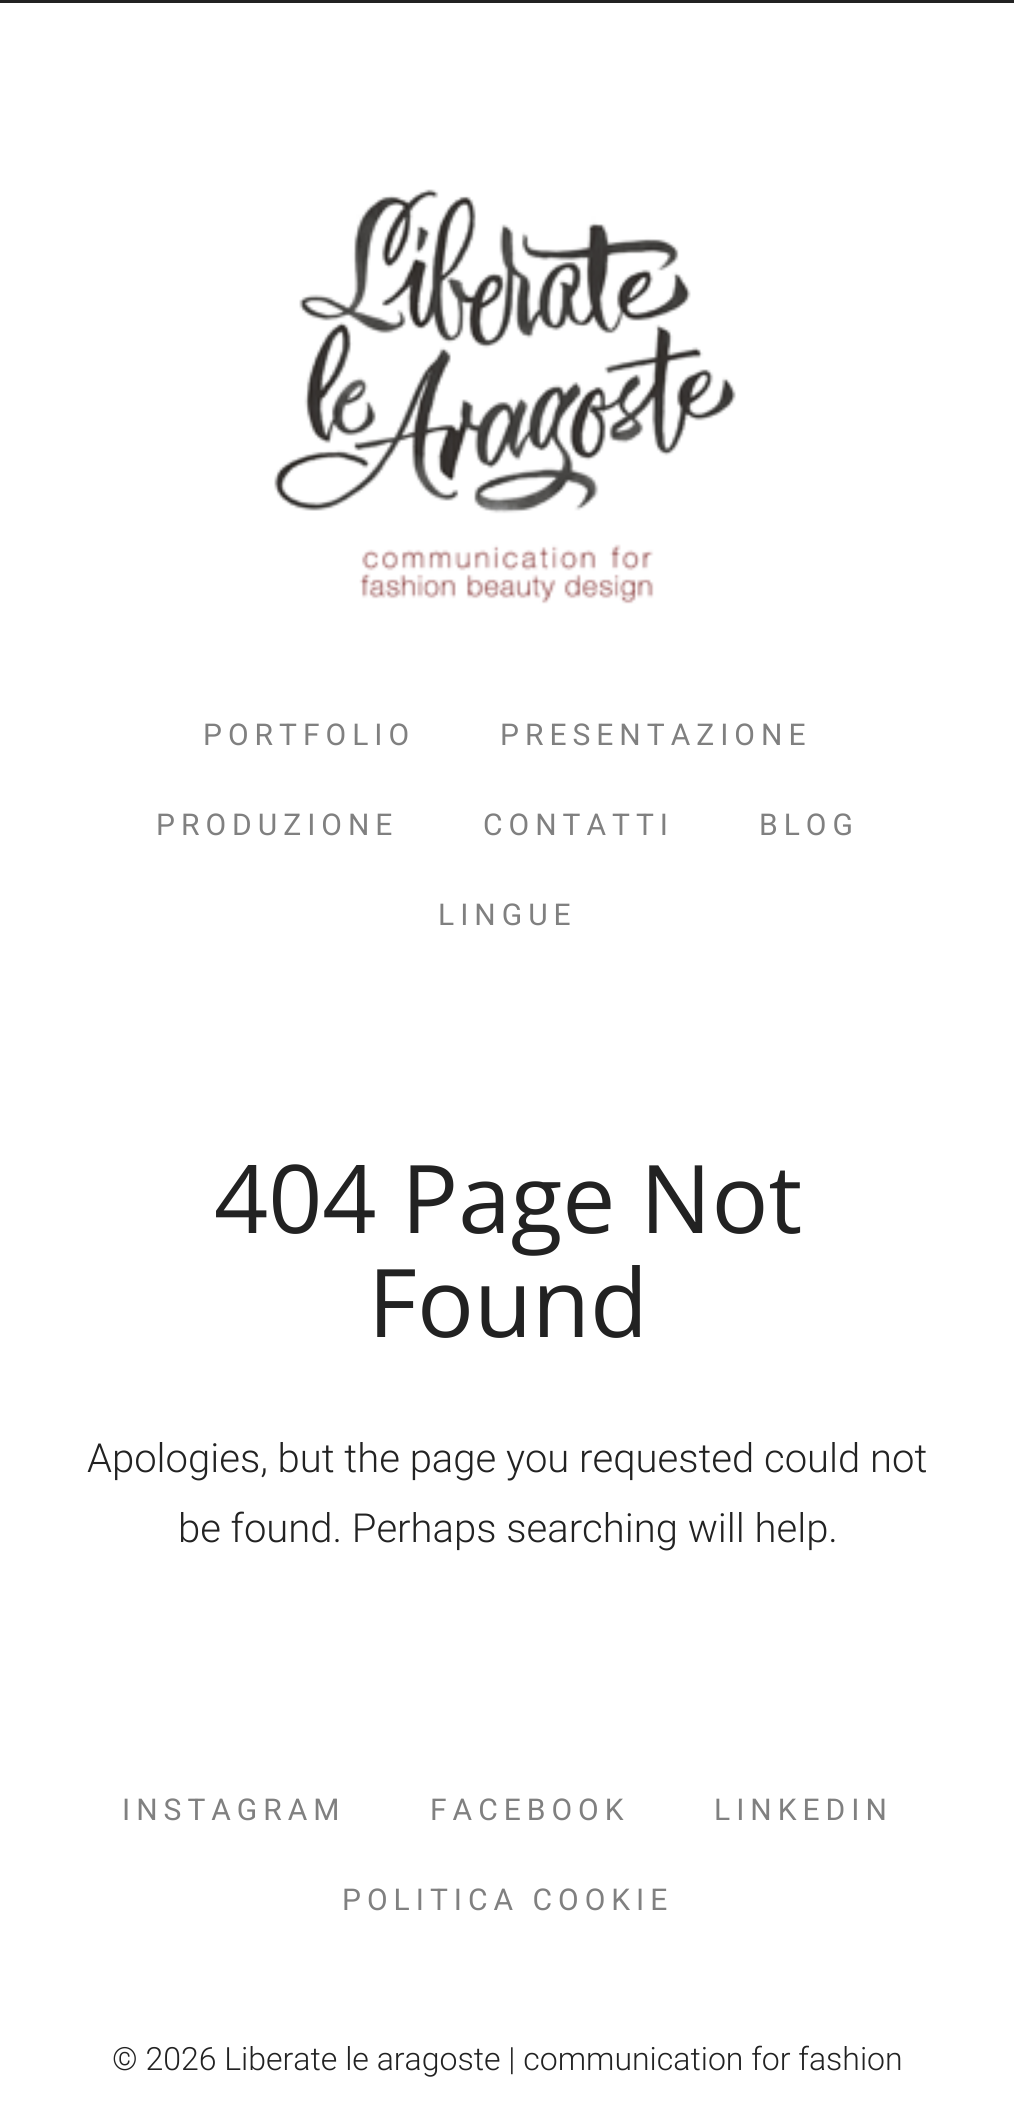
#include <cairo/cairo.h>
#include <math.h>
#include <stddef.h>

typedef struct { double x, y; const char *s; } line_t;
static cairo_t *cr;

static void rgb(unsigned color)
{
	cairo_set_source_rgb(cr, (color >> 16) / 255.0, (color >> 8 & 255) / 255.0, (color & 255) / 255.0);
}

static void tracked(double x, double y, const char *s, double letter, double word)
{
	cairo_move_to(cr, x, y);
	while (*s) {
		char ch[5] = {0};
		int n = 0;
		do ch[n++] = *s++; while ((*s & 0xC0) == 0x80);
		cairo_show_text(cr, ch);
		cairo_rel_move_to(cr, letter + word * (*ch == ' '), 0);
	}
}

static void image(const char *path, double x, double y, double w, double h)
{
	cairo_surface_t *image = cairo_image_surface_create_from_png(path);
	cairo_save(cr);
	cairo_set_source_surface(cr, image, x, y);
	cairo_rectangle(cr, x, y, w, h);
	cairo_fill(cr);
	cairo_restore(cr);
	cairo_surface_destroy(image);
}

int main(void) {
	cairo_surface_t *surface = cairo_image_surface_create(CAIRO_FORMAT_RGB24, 1014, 2109);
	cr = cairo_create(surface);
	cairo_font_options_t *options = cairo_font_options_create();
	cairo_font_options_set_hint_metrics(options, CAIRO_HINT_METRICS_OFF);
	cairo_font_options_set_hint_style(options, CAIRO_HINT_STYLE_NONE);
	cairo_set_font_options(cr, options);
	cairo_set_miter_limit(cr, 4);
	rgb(0xffffff);
	cairo_paint(cr);
	rgb(0x222222);
	cairo_rectangle(cr, 0, 0, 1014, 3);
	cairo_fill(cr);
	image("img/1.png", 274, 189, 462, 415);
	cairo_select_font_face(cr, "Roboto", CAIRO_FONT_SLANT_NORMAL, CAIRO_FONT_WEIGHT_NORMAL);
	cairo_set_font_size(cr, 30);
	rgb(0x808080);
	{
		static const line_t items[] = {
			{203, 745, "PORTFOLIO"},
			{500, 745, "PRESENTAZIONE"},
			{156, 835, "PRODUZIONE"},
			{483, 835, "CONTATTI"},
			{759, 835, "BLOG"},
			{438, 925, "LINGUE"},
		};
		for (size_t i = 0; i < sizeof items / sizeof *items; i++) {
			tracked(items[i].x, items[i].y, items[i].s, 6, 0);
		}
	}
	cairo_select_font_face(cr, "Open Sans", CAIRO_FONT_SLANT_NORMAL, CAIRO_FONT_WEIGHT_NORMAL);
	cairo_set_font_size(cr, 94.75);
	rgb(0x222222);
	cairo_move_to(cr, 214, 1233);
	cairo_show_text(cr, "404 Page Not");
	cairo_move_to(cr, 368, 1337);
	cairo_show_text(cr, "Found");
	cairo_select_font_face(cr, "Roboto Light", CAIRO_FONT_SLANT_NORMAL, CAIRO_FONT_WEIGHT_NORMAL);
	cairo_set_font_size(cr, 40);
	cairo_move_to(cr, 87, 1472);
	cairo_show_text(cr, "Apologies, but the page you requested could not");
	cairo_move_to(cr, 178, 1542);
	cairo_show_text(cr, "be found. Perhaps searching will help.");
	cairo_select_font_face(cr, "Roboto", CAIRO_FONT_SLANT_NORMAL, CAIRO_FONT_WEIGHT_NORMAL);
	cairo_set_font_size(cr, 30);
	rgb(0x808080);
	{
		static const line_t items[] = {
			{122, 1820, "INSTAGRAM"},
			{430, 1820, "FACEBOOK"},
			{714, 1820, "LINKEDIN"},
			{342, 1910, "POLITICA COOKIE"},
		};
		for (size_t i = 0; i < sizeof items / sizeof *items; i++) {
			tracked(items[i].x, items[i].y, items[i].s, 6, 0);
		}
	}
	cairo_select_font_face(cr, "Roboto Light", CAIRO_FONT_SLANT_NORMAL, CAIRO_FONT_WEIGHT_NORMAL);
	cairo_set_font_size(cr, 32);
	rgb(0x222222);
	cairo_move_to(cr, 112, 2070);
	cairo_show_text(cr, "© 2026 Liberate le aragoste | communication for fashion");
	cairo_surface_write_to_png(surface, "page.png");
	cairo_font_options_destroy(options);
	cairo_destroy(cr);
	cairo_surface_destroy(surface);
	return 0;
}
